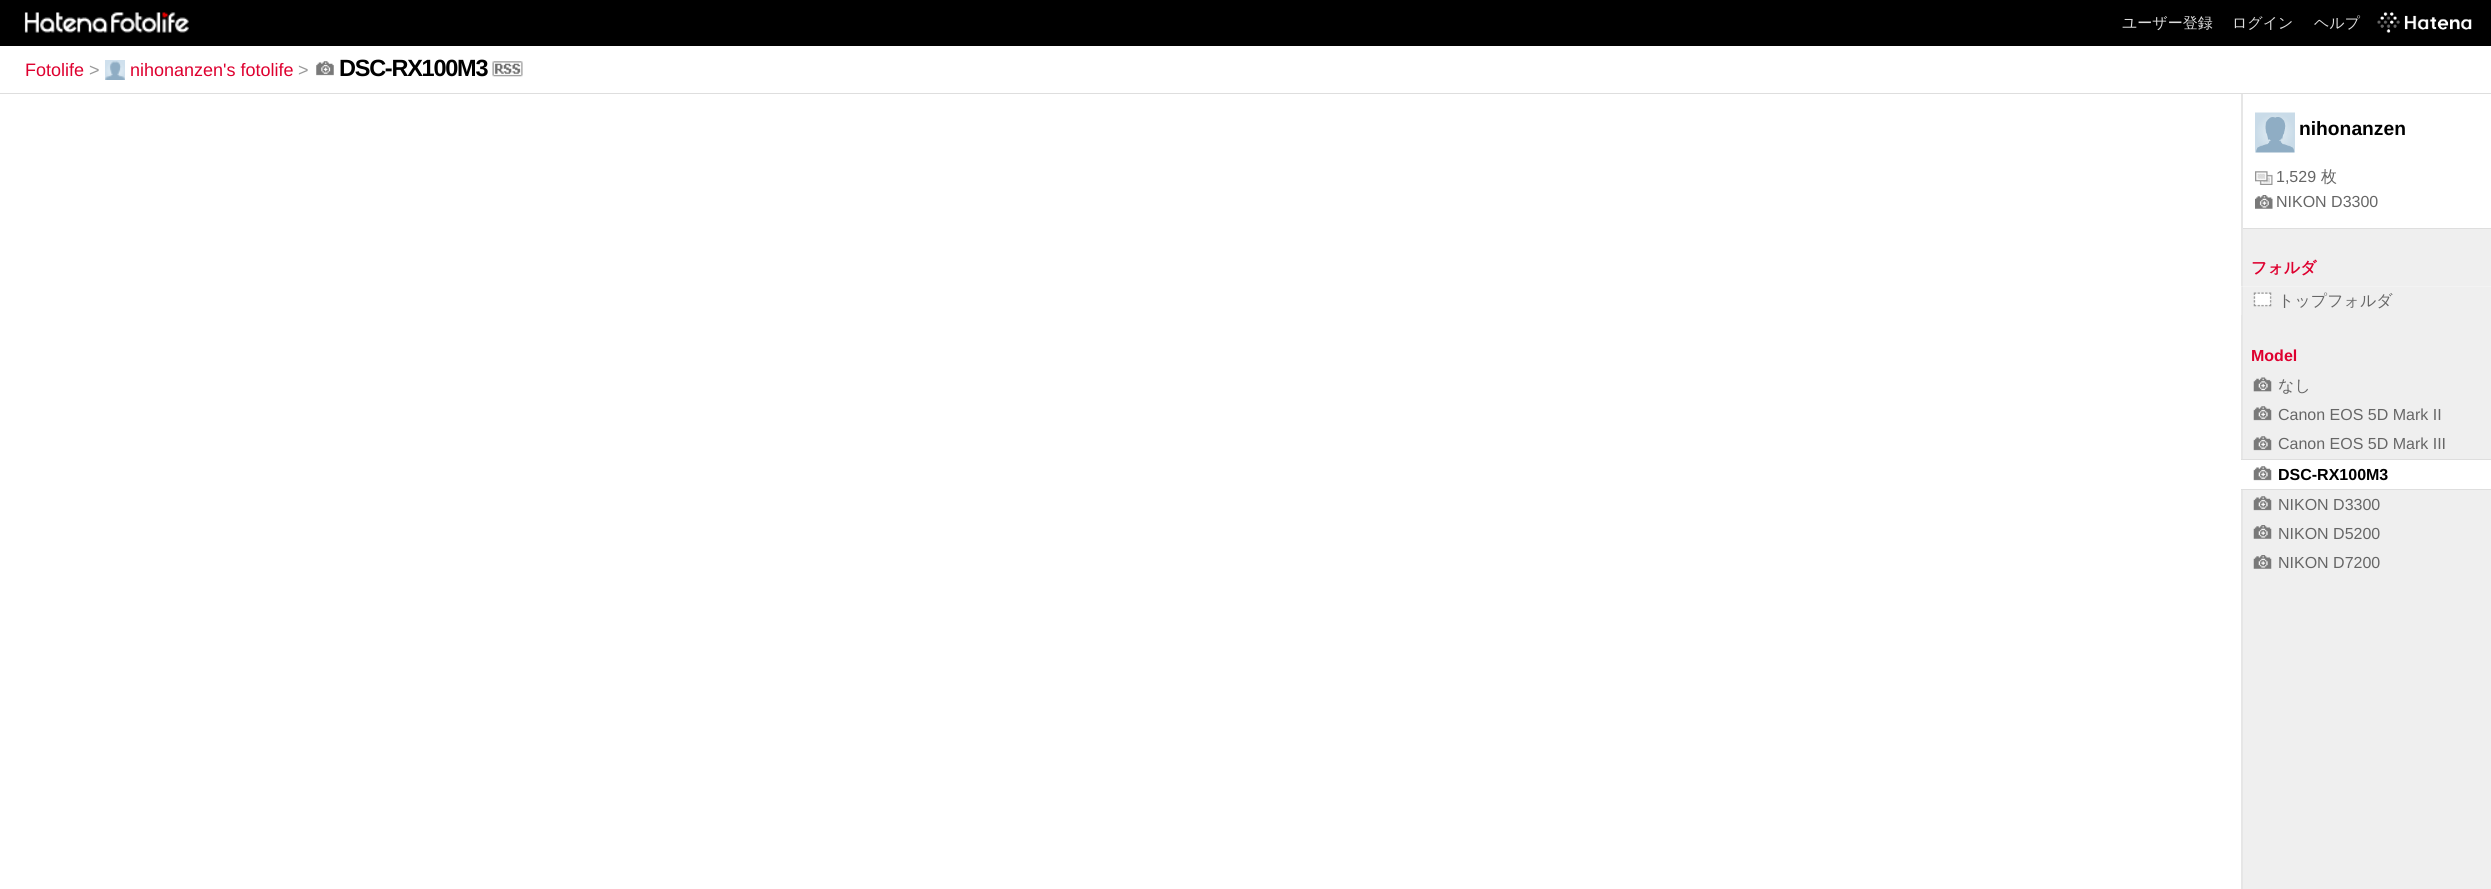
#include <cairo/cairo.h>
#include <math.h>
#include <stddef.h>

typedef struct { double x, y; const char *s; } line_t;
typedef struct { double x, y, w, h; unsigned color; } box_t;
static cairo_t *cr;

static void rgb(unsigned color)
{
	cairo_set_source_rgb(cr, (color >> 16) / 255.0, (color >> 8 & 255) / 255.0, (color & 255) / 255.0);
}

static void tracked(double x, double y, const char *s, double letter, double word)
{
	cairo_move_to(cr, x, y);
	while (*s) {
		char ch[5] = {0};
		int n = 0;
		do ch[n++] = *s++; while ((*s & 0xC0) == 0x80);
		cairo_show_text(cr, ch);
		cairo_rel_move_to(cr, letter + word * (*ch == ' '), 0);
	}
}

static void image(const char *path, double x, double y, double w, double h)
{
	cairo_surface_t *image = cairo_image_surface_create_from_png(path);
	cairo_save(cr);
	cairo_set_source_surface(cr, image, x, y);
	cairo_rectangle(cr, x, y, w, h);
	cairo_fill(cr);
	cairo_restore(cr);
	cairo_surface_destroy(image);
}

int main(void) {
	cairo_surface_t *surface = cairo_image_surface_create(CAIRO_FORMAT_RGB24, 2491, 889);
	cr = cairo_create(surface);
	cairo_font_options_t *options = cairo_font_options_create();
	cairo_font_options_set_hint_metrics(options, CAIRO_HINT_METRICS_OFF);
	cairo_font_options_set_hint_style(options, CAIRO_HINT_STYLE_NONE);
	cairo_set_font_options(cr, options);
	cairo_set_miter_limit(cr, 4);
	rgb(0xffffff);
	cairo_paint(cr);
	image("img/1.png", 2241, 94, 250, 795);
	rgb(0x000000);
	cairo_rectangle(cr, 0, 0, 2491, 46);
	cairo_fill(cr);
	image("img/2.png", 24, 12, 84, 21);
	image("img/3.png", 111, 12, 78, 21);
	image("img/4.png", 2377, 12, 95, 21);
	rgb(0xdedede);
	cairo_rectangle(cr, 0, 93, 2491, 1);
	cairo_fill(cr);
	image("img/5.png", 105, 60, 20, 20);
	image("img/6.png", 316, 61, 18, 15);
	image("img/7.png", 492, 61, 31, 16);
	rgb(0xffffff);
	cairo_rectangle(cr, 2243, 94, 248, 134);
	cairo_fill(cr);
	rgb(0xdedede);
	cairo_rectangle(cr, 2243, 228, 248, 1);
	cairo_fill(cr);
	image("img/8.png", 2255, 112, 40, 41);
	image("img/9.png", 2255, 171, 18, 14);
	image("img/10.png", 2255, 195, 18, 14);
	rgb(0xffffff);
	cairo_rectangle(cr, 2241, 286, 250, 29);
	cairo_fill(cr);
	image("img/11.png", 2241, 286, 250, 29);
	image("img/12.png", 2253, 292, 19, 15);
	image("img/13.png", 2253, 377, 19, 15);
	image("img/14.png", 2253, 406, 19, 15);
	image("img/14.png", 2253, 436, 19, 15);
	{
		static const box_t items[] = {
			{2241, 460, 250, 29, 0xffffff},
			{2241, 459, 250, 1, 0xdedede},
			{2241, 489, 250, 1, 0xdedede},
		};
		for (size_t i = 0; i < sizeof items / sizeof *items; i++) {
			rgb(items[i].color);
			cairo_rectangle(cr, items[i].x, items[i].y, items[i].w, items[i].h);
			cairo_fill(cr);
		}
	}
	image("img/15.png", 2253, 466, 19, 15);
	image("img/14.png", 2253, 496, 19, 15);
	image("img/16.png", 2253, 525, 19, 14);
	image("img/16.png", 2253, 555, 19, 14);
	cairo_select_font_face(cr, "WenQuanYi Zen Hei Medium", CAIRO_FONT_SLANT_NORMAL, CAIRO_FONT_WEIGHT_NORMAL);
	cairo_set_font_size(cr, 15);
	rgb(0xdddddd);
	{
		static const line_t items[] = {
			{2122, 28, "ユーザー登録"},
			{2232, 28, "ログイン"},
			{2314, 28, "ヘルプ"},
		};
		for (size_t i = 0; i < sizeof items / sizeof *items; i++) {
			cairo_move_to(cr, items[i].x, items[i].y);
			cairo_show_text(cr, items[i].s);
		}
	}
	cairo_select_font_face(cr, "Liberation Sans", CAIRO_FONT_SLANT_NORMAL, CAIRO_FONT_WEIGHT_NORMAL);
	cairo_set_font_size(cr, 18);
	rgb(0xde002f);
	cairo_move_to(cr, 25, 76);
	cairo_show_text(cr, "Fotolife");
	rgb(0x999999);
	cairo_move_to(cr, 89, 76);
	cairo_show_text(cr, ">");
	rgb(0xde002f);
	cairo_move_to(cr, 130, 76);
	cairo_show_text(cr, "nihonanzen's fotolife");
	rgb(0x999999);
	cairo_move_to(cr, 298, 76);
	cairo_show_text(cr, ">");
	cairo_select_font_face(cr, "Liberation Sans", CAIRO_FONT_SLANT_NORMAL, CAIRO_FONT_WEIGHT_BOLD);
	cairo_set_font_size(cr, 23.5);
	rgb(0x000000);
	tracked(339, 76, "DSC-RX100M3", -1.25, 0);
	cairo_set_font_size(cr, 19.25);
	cairo_move_to(cr, 2299, 135);
	cairo_show_text(cr, "nihonanzen");
	cairo_select_font_face(cr, "Liberation Sans", CAIRO_FONT_SLANT_NORMAL, CAIRO_FONT_WEIGHT_NORMAL);
	cairo_set_font_size(cr, 16);
	rgb(0x666666);
	cairo_move_to(cr, 2276, 182);
	cairo_show_text(cr, "1,529");
	cairo_select_font_face(cr, "WenQuanYi Zen Hei Medium", CAIRO_FONT_SLANT_NORMAL, CAIRO_FONT_WEIGHT_NORMAL);
	cairo_move_to(cr, 2321, 182);
	cairo_show_text(cr, "枚");
	cairo_select_font_face(cr, "Liberation Sans", CAIRO_FONT_SLANT_NORMAL, CAIRO_FONT_WEIGHT_NORMAL);
	cairo_move_to(cr, 2276, 207);
	cairo_show_text(cr, "NIKON D3300");
	cairo_select_font_face(cr, "WenQuanYi Zen Hei", CAIRO_FONT_SLANT_NORMAL, CAIRO_FONT_WEIGHT_BOLD);
	rgb(0xde002f);
	cairo_move_to(cr, 2251, 273);
	cairo_show_text(cr, "フォルダ");
	cairo_select_font_face(cr, "WenQuanYi Zen Hei Medium", CAIRO_FONT_SLANT_NORMAL, CAIRO_FONT_WEIGHT_NORMAL);
	rgb(0x666666);
	cairo_move_to(cr, 2278, 306);
	cairo_show_text(cr, "トップフォルダ");
	cairo_select_font_face(cr, "Liberation Sans", CAIRO_FONT_SLANT_NORMAL, CAIRO_FONT_WEIGHT_BOLD);
	rgb(0xde002f);
	cairo_move_to(cr, 2251, 361);
	cairo_show_text(cr, "Model");
	cairo_select_font_face(cr, "WenQuanYi Zen Hei Medium", CAIRO_FONT_SLANT_NORMAL, CAIRO_FONT_WEIGHT_NORMAL);
	rgb(0x666666);
	cairo_move_to(cr, 2278, 391);
	cairo_show_text(cr, "なし");
	cairo_select_font_face(cr, "Liberation Sans", CAIRO_FONT_SLANT_NORMAL, CAIRO_FONT_WEIGHT_NORMAL);
	cairo_move_to(cr, 2278, 420);
	cairo_show_text(cr, "Canon EOS 5D Mark II");
	cairo_move_to(cr, 2278, 449);
	cairo_show_text(cr, "Canon EOS 5D Mark III");
	cairo_select_font_face(cr, "Liberation Sans", CAIRO_FONT_SLANT_NORMAL, CAIRO_FONT_WEIGHT_BOLD);
	rgb(0x000000);
	cairo_move_to(cr, 2278, 480);
	cairo_show_text(cr, "DSC-RX100M3");
	cairo_select_font_face(cr, "Liberation Sans", CAIRO_FONT_SLANT_NORMAL, CAIRO_FONT_WEIGHT_NORMAL);
	rgb(0x666666);
	{
		static const line_t items[] = {
			{2278, 510, "NIKON D3300"},
			{2278, 539, "NIKON D5200"},
			{2278, 568, "NIKON D7200"},
		};
		for (size_t i = 0; i < sizeof items / sizeof *items; i++) {
			cairo_move_to(cr, items[i].x, items[i].y);
			cairo_show_text(cr, items[i].s);
		}
	}
	cairo_surface_write_to_png(surface, "page.png");
	cairo_font_options_destroy(options);
	cairo_destroy(cr);
	cairo_surface_destroy(surface);
	return 0;
}
